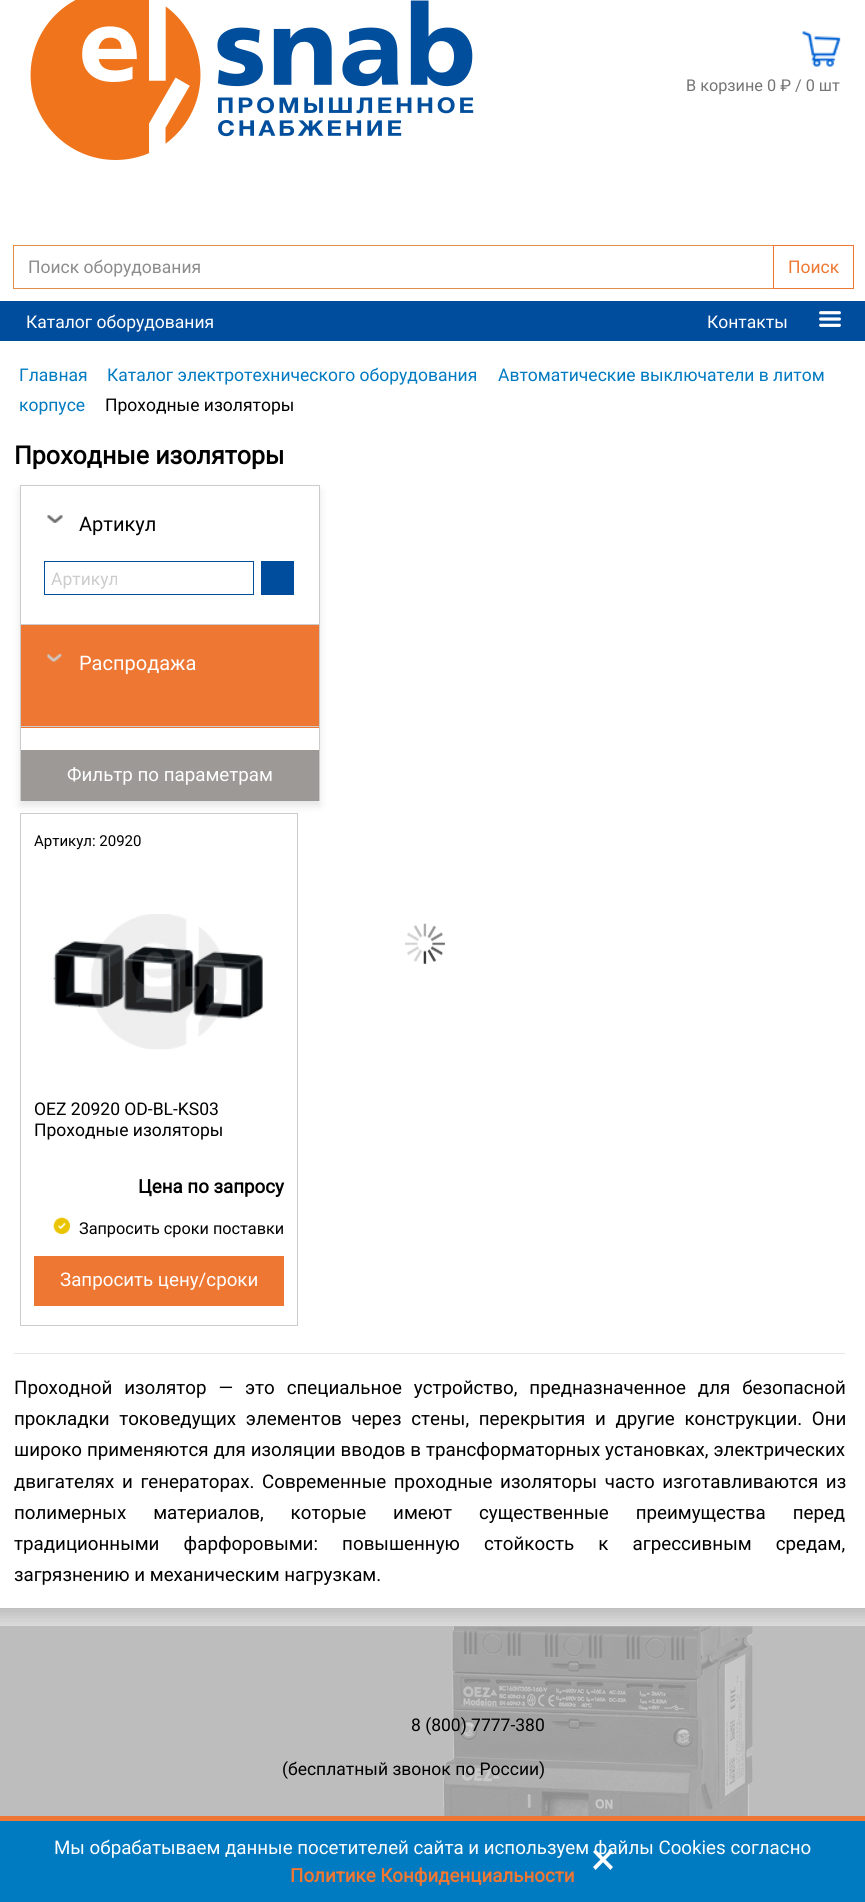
#include <cairo/cairo.h>
#include <math.h>
#include <stddef.h>

typedef struct { double x, y; const char *s; } line_t;
typedef struct { double x, y, w, h; unsigned color; } box_t;
static cairo_t *cr;

static void rgb(unsigned color)
{
	cairo_set_source_rgb(cr, (color >> 16) / 255.0, (color >> 8 & 255) / 255.0, (color & 255) / 255.0);
}

static void tracked(double x, double y, const char *s, double letter, double word)
{
	cairo_move_to(cr, x, y);
	while (*s) {
		char ch[5] = {0};
		int n = 0;
		do ch[n++] = *s++; while ((*s & 0xC0) == 0x80);
		cairo_show_text(cr, ch);
		cairo_rel_move_to(cr, letter + word * (*ch == ' '), 0);
	}
}

static void rrect(double x, double y, double w, double h, double r)
{
	cairo_new_sub_path(cr);
	cairo_arc(cr, x + w - r, y + h - r, r, 0, M_PI / 2);
	cairo_arc(cr, x + r, y + h - r, r, M_PI / 2, M_PI);
	cairo_arc(cr, x + r, y + r, r, M_PI, 1.5 * M_PI);
	cairo_arc(cr, x + w - r, y + r, r, 1.5 * M_PI, 2 * M_PI);
	cairo_close_path(cr);
}

static void soft_shadow(double x, double y, double w, double h, double r, double blur, double alpha)
{
	cairo_push_group_with_content(cr, CAIRO_CONTENT_ALPHA);
	cairo_set_operator(cr, CAIRO_OPERATOR_SOURCE);
	for (int i = 15; i >= -15 && fmin(w, h) + blur * i / 3 > 0; i -= 2) {
		double e = blur * i / 6;
		cairo_set_source_rgba(cr, 0, 0, 0, alpha * erfc((i - 1) / 8.5) / 2);
		rrect(x - e, y - e, w + 2 * e, h + 2 * e, fmax(0, fmin(r + e + blur * .6, fmin(w, h) / 2 + e)));
		cairo_fill(cr);
	}
	cairo_pattern_t *soft = cairo_pop_group(cr);
	cairo_mask(cr, soft);
	cairo_pattern_destroy(soft);
}

static void image(const char *path, double x, double y, double w, double h)
{
	cairo_surface_t *image = cairo_image_surface_create_from_png(path);
	cairo_save(cr);
	cairo_set_source_surface(cr, image, x, y);
	cairo_rectangle(cr, x, y, w, h);
	cairo_fill(cr);
	cairo_restore(cr);
	cairo_surface_destroy(image);
}

int main(void) {
	cairo_surface_t *surface = cairo_image_surface_create(CAIRO_FORMAT_RGB24, 865, 1902);
	cr = cairo_create(surface);
	cairo_font_options_t *options = cairo_font_options_create();
	cairo_font_options_set_hint_metrics(options, CAIRO_HINT_METRICS_OFF);
	cairo_font_options_set_hint_style(options, CAIRO_HINT_STYLE_NONE);
	cairo_set_font_options(cr, options);
	cairo_set_miter_limit(cr, 4);
	rgb(0xdedede);
	cairo_paint(cr);
	rgb(0xffffff);
	cairo_rectangle(cr, 0, 0, 865, 301);
	cairo_fill(cr);
	image("img/1.png", 30, 0, 444, 160);
	image("img/2.png", 802, 31, 39, 36);
	cairo_rectangle(cr, 13.5, 245.5, 839, 43);
	rgb(0xe38d49);
	cairo_set_line_width(cr, 1);
	cairo_stroke(cr);
	rgb(0xffffff);
	cairo_rectangle(cr, 852, 246, 1, 42);
	cairo_fill(cr);
	cairo_rectangle(cr, 773.5, 245.5, 80, 43);
	rgb(0xee7733);
	cairo_stroke(cr);
	rgb(0xb4b4b4);
	soft_shadow(-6, 319, 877, 1295, 0, 9.5, 1);
	rgb(0x004d9d);
	cairo_rectangle(cr, 0, 301, 865, 40);
	cairo_fill(cr);
	image("img/3.png", 819, 311, 22, 16);
	rgb(0xffffff);
	cairo_rectangle(cr, 0, 341, 865, 1267);
	cairo_fill(cr);
	cairo_save(cr);
	cairo_set_fill_rule(cr, CAIRO_FILL_RULE_EVEN_ODD);
	cairo_new_path(cr);
	cairo_move_to(cr, 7, 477);
	cairo_line_to(cr, 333, 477);
	cairo_line_to(cr, 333, 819);
	cairo_line_to(cr, 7, 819);
	cairo_close_path(cr);
	cairo_move_to(cr, 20, 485);
	cairo_line_to(cr, 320, 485);
	cairo_line_to(cr, 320, 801);
	cairo_line_to(cr, 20, 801);
	cairo_close_path(cr);
	cairo_clip(cr);
	rgb(0x000000);
	soft_shadow(20, 490, 300, 316, 0, 4, 0.1);
	cairo_restore(cr);
	cairo_rectangle(cr, 20.5, 485.5, 299, 315);
	rgb(0xcccccc);
	cairo_stroke(cr);
	cairo_rectangle(cr, 21, 624, 298, 1);
	cairo_fill(cr);
	image("img/4.png", 47, 515, 16, 8);
	cairo_rectangle(cr, 44.5, 561.5, 209, 33);
	rgb(0x004d9d);
	cairo_stroke(cr);
	{
		static const box_t items[] = {
			{261, 561, 33, 34, 0x004d9d},
			{21, 625, 298, 103, 0xee7733},
			{21, 726, 298, 1, 0xcccccc},
		};
		for (size_t i = 0; i < sizeof items / sizeof *items; i++) {
			rgb(items[i].color);
			cairo_rectangle(cr, items[i].x, items[i].y, items[i].w, items[i].h);
			cairo_fill(cr);
		}
	}
	image("img/5.png", 47, 654, 15, 8);
	rgb(0x9c9997);
	cairo_rectangle(cr, 21, 750, 298, 51);
	cairo_fill(cr);
	cairo_rectangle(cr, 20.5, 813.5, 277, 512);
	rgb(0xcccccc);
	cairo_stroke(cr);
	image("img/6.png", 53, 914, 210, 136);
	image("img/7.png", 53, 1217, 17, 17);
	rgb(0xee7733);
	cairo_rectangle(cr, 34, 1256, 250, 50);
	cairo_fill(cr);
	rgb(0xe6e6e6);
	cairo_rectangle(cr, 14, 1353, 831, 1);
	cairo_fill(cr);
	image("img/8.png", 405, 923, 40, 41);
	rgb(0xbdbdbd);
	cairo_rectangle(cr, 0, 1626, 865, 190);
	cairo_fill(cr);
	image("img/9.png", 443, 1626, 310, 190);
	rgb(0x007ac1);
	cairo_rectangle(cr, 0, 1821, 865, 81);
	cairo_fill(cr);
	rgb(0xee7733);
	cairo_rectangle(cr, 0, 1816, 865, 5);
	cairo_fill(cr);
	rgb(0xffffff);
	cairo_new_path(cr);
	cairo_move_to(cr, 595.5, 1849.5);
	cairo_line_to(cr, 613, 1867);
	cairo_line_to(cr, 610.5, 1870);
	cairo_line_to(cr, 593, 1852);
	cairo_close_path(cr);
	cairo_fill(cr);
	cairo_new_path(cr);
	cairo_move_to(cr, 593, 1867);
	cairo_line_to(cr, 610.5, 1849.5);
	cairo_line_to(cr, 613, 1852);
	cairo_line_to(cr, 595.5, 1870);
	cairo_close_path(cr);
	cairo_fill(cr);
	cairo_select_font_face(cr, "Roboto", CAIRO_FONT_SLANT_NORMAL, CAIRO_FONT_WEIGHT_NORMAL);
	cairo_set_font_size(cr, 16.25);
	rgb(0x757575);
	cairo_move_to(cr, 686, 91);
	cairo_show_text(cr, "В корзине 0 ₽ / 0 шт");
	cairo_set_font_size(cr, 17.5);
	rgb(0x8c8c8c);
	cairo_move_to(cr, 28, 273);
	cairo_show_text(cr, "Поиск оборудования");
	rgb(0xee7733);
	cairo_move_to(cr, 788, 273);
	cairo_show_text(cr, "Поиск");
	rgb(0xffffff);
	cairo_move_to(cr, 26, 328);
	cairo_show_text(cr, "Каталог оборудования");
	cairo_move_to(cr, 707, 328);
	cairo_show_text(cr, "Контакты");
	rgb(0x007ac1);
	{
		static const line_t items[] = {
			{19, 381, "Главная"},
			{107, 381, "Каталог электротехнического оборудования"},
			{498, 381, "Автоматические выключатели в литом"},
			{19, 411, "корпусе"},
		};
		for (size_t i = 0; i < sizeof items / sizeof *items; i++) {
			cairo_move_to(cr, items[i].x, items[i].y);
			cairo_show_text(cr, items[i].s);
		}
	}
	rgb(0x000000);
	cairo_move_to(cr, 105, 411);
	cairo_show_text(cr, "Проходные изоляторы");
	cairo_select_font_face(cr, "Roboto", CAIRO_FONT_SLANT_NORMAL, CAIRO_FONT_WEIGHT_BOLD);
	cairo_set_font_size(cr, 25);
	cairo_move_to(cr, 14, 464);
	cairo_show_text(cr, "Проходные изоляторы");
	cairo_select_font_face(cr, "Roboto", CAIRO_FONT_SLANT_NORMAL, CAIRO_FONT_WEIGHT_NORMAL);
	cairo_set_font_size(cr, 20);
	cairo_move_to(cr, 79, 531);
	cairo_show_text(cr, "Артикул");
	cairo_set_font_size(cr, 17.5);
	rgb(0xcccccc);
	cairo_move_to(cr, 51, 585);
	cairo_show_text(cr, "Артикул");
	cairo_set_font_size(cr, 20);
	rgb(0xffffff);
	cairo_move_to(cr, 79, 670);
	cairo_show_text(cr, "Распродажа");
	cairo_set_font_size(cr, 18.75);
	cairo_move_to(cr, 67, 781);
	cairo_show_text(cr, "Фильтр по параметрам");
	cairo_set_font_size(cr, 15);
	rgb(0x000000);
	cairo_move_to(cr, 34, 846);
	cairo_show_text(cr, "Артикул: 20920");
	cairo_set_font_size(cr, 17.5);
	cairo_move_to(cr, 34, 1115);
	cairo_show_text(cr, "OEZ 20920 OD-BL-KS03");
	cairo_move_to(cr, 34, 1136);
	cairo_show_text(cr, "Проходные изоляторы");
	cairo_select_font_face(cr, "Roboto", CAIRO_FONT_SLANT_NORMAL, CAIRO_FONT_WEIGHT_BOLD);
	cairo_set_font_size(cr, 18.75);
	cairo_move_to(cr, 138, 1193);
	cairo_show_text(cr, "Цена по запросу");
	cairo_select_font_face(cr, "Roboto", CAIRO_FONT_SLANT_NORMAL, CAIRO_FONT_WEIGHT_NORMAL);
	cairo_set_font_size(cr, 16.25);
	cairo_move_to(cr, 79, 1234);
	cairo_show_text(cr, "Запросить сроки поставки");
	cairo_set_font_size(cr, 18.75);
	rgb(0xffffff);
	cairo_move_to(cr, 60, 1286);
	cairo_show_text(cr, "Запросить цену/сроки");
	rgb(0x000000);
	tracked(14, 1394, "Проходной изолятор — это специальное устройство, предназначенное для безопасной", 0, 7.25);
	tracked(14, 1425, "прокладки токоведущих элементов через стены, перекрытия и другие конструкции. Они", 0, 5);
	tracked(14, 1456, "широко применяются для изоляции вводов в трансформаторных установках, электрических", 0, 0.25);
	tracked(14, 1488, "двигателях и генераторах. Современные проходные изоляторы часто изготавливаются из", 0, 3);
	tracked(14, 1519, "полимерных материалов, которые имеют существенные преимущества перед", 0, 22.25);
	tracked(14, 1550, "традиционными фарфоровыми: повышенную стойкость к агрессивным средам,", 0, 19.5);
	cairo_move_to(cr, 14, 1581);
	cairo_show_text(cr, "загрязнению и механическим нагрузкам.");
	cairo_set_font_size(cr, 17.5);
	cairo_move_to(cr, 411, 1731);
	cairo_show_text(cr, "8 (800) 7777-380");
	cairo_move_to(cr, 282, 1775);
	cairo_show_text(cr, "(бесплатный звонок по России)");
	cairo_set_font_size(cr, 18.75);
	rgb(0xffffff);
	cairo_move_to(cr, 54, 1854);
	cairo_show_text(cr, "Мы обрабатываем данные посетителей сайта и используем файлы Cookies согласно");
	cairo_select_font_face(cr, "Roboto", CAIRO_FONT_SLANT_NORMAL, CAIRO_FONT_WEIGHT_BOLD);
	rgb(0xee7733);
	cairo_move_to(cr, 290, 1882);
	cairo_show_text(cr, "Политике Конфиденциальности");
	cairo_surface_write_to_png(surface, "page.png");
	cairo_font_options_destroy(options);
	cairo_destroy(cr);
	cairo_surface_destroy(surface);
	return 0;
}
